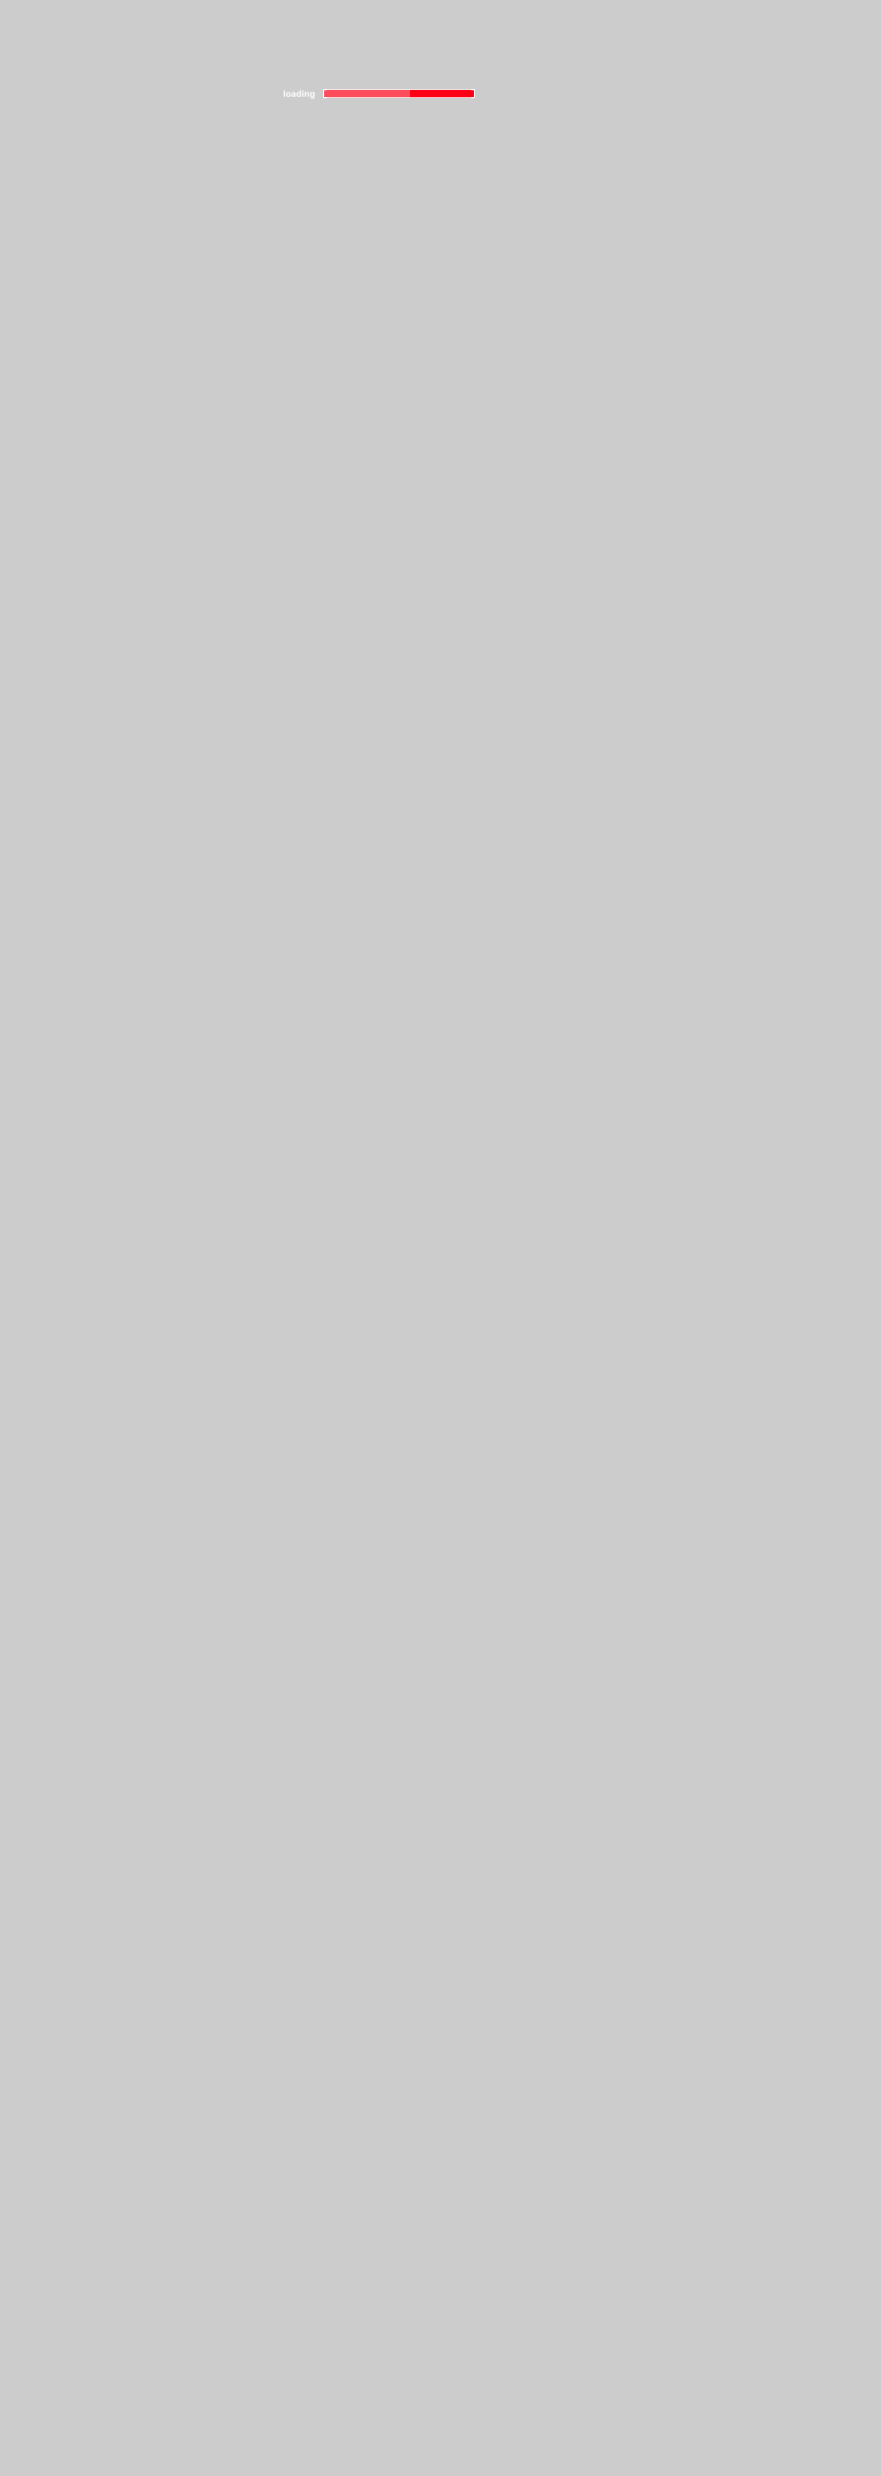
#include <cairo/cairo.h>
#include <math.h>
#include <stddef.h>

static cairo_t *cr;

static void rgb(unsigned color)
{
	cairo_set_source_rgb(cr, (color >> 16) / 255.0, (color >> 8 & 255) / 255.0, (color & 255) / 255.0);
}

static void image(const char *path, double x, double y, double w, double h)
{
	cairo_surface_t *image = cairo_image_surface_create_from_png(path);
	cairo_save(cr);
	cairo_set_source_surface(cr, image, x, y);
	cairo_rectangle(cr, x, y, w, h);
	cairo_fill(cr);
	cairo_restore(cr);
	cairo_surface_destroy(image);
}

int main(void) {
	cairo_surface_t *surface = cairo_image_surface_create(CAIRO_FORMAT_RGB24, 881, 2476);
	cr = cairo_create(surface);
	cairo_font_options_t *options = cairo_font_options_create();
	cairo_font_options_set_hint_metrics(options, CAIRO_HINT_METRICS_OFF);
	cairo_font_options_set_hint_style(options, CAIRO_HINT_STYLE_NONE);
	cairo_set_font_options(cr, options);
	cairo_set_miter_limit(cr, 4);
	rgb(0xcccccc);
	cairo_paint(cr);
	image("img/1.png", 283, 89, 192, 10);
	cairo_surface_write_to_png(surface, "page.png");
	cairo_font_options_destroy(options);
	cairo_destroy(cr);
	cairo_surface_destroy(surface);
	return 0;
}
